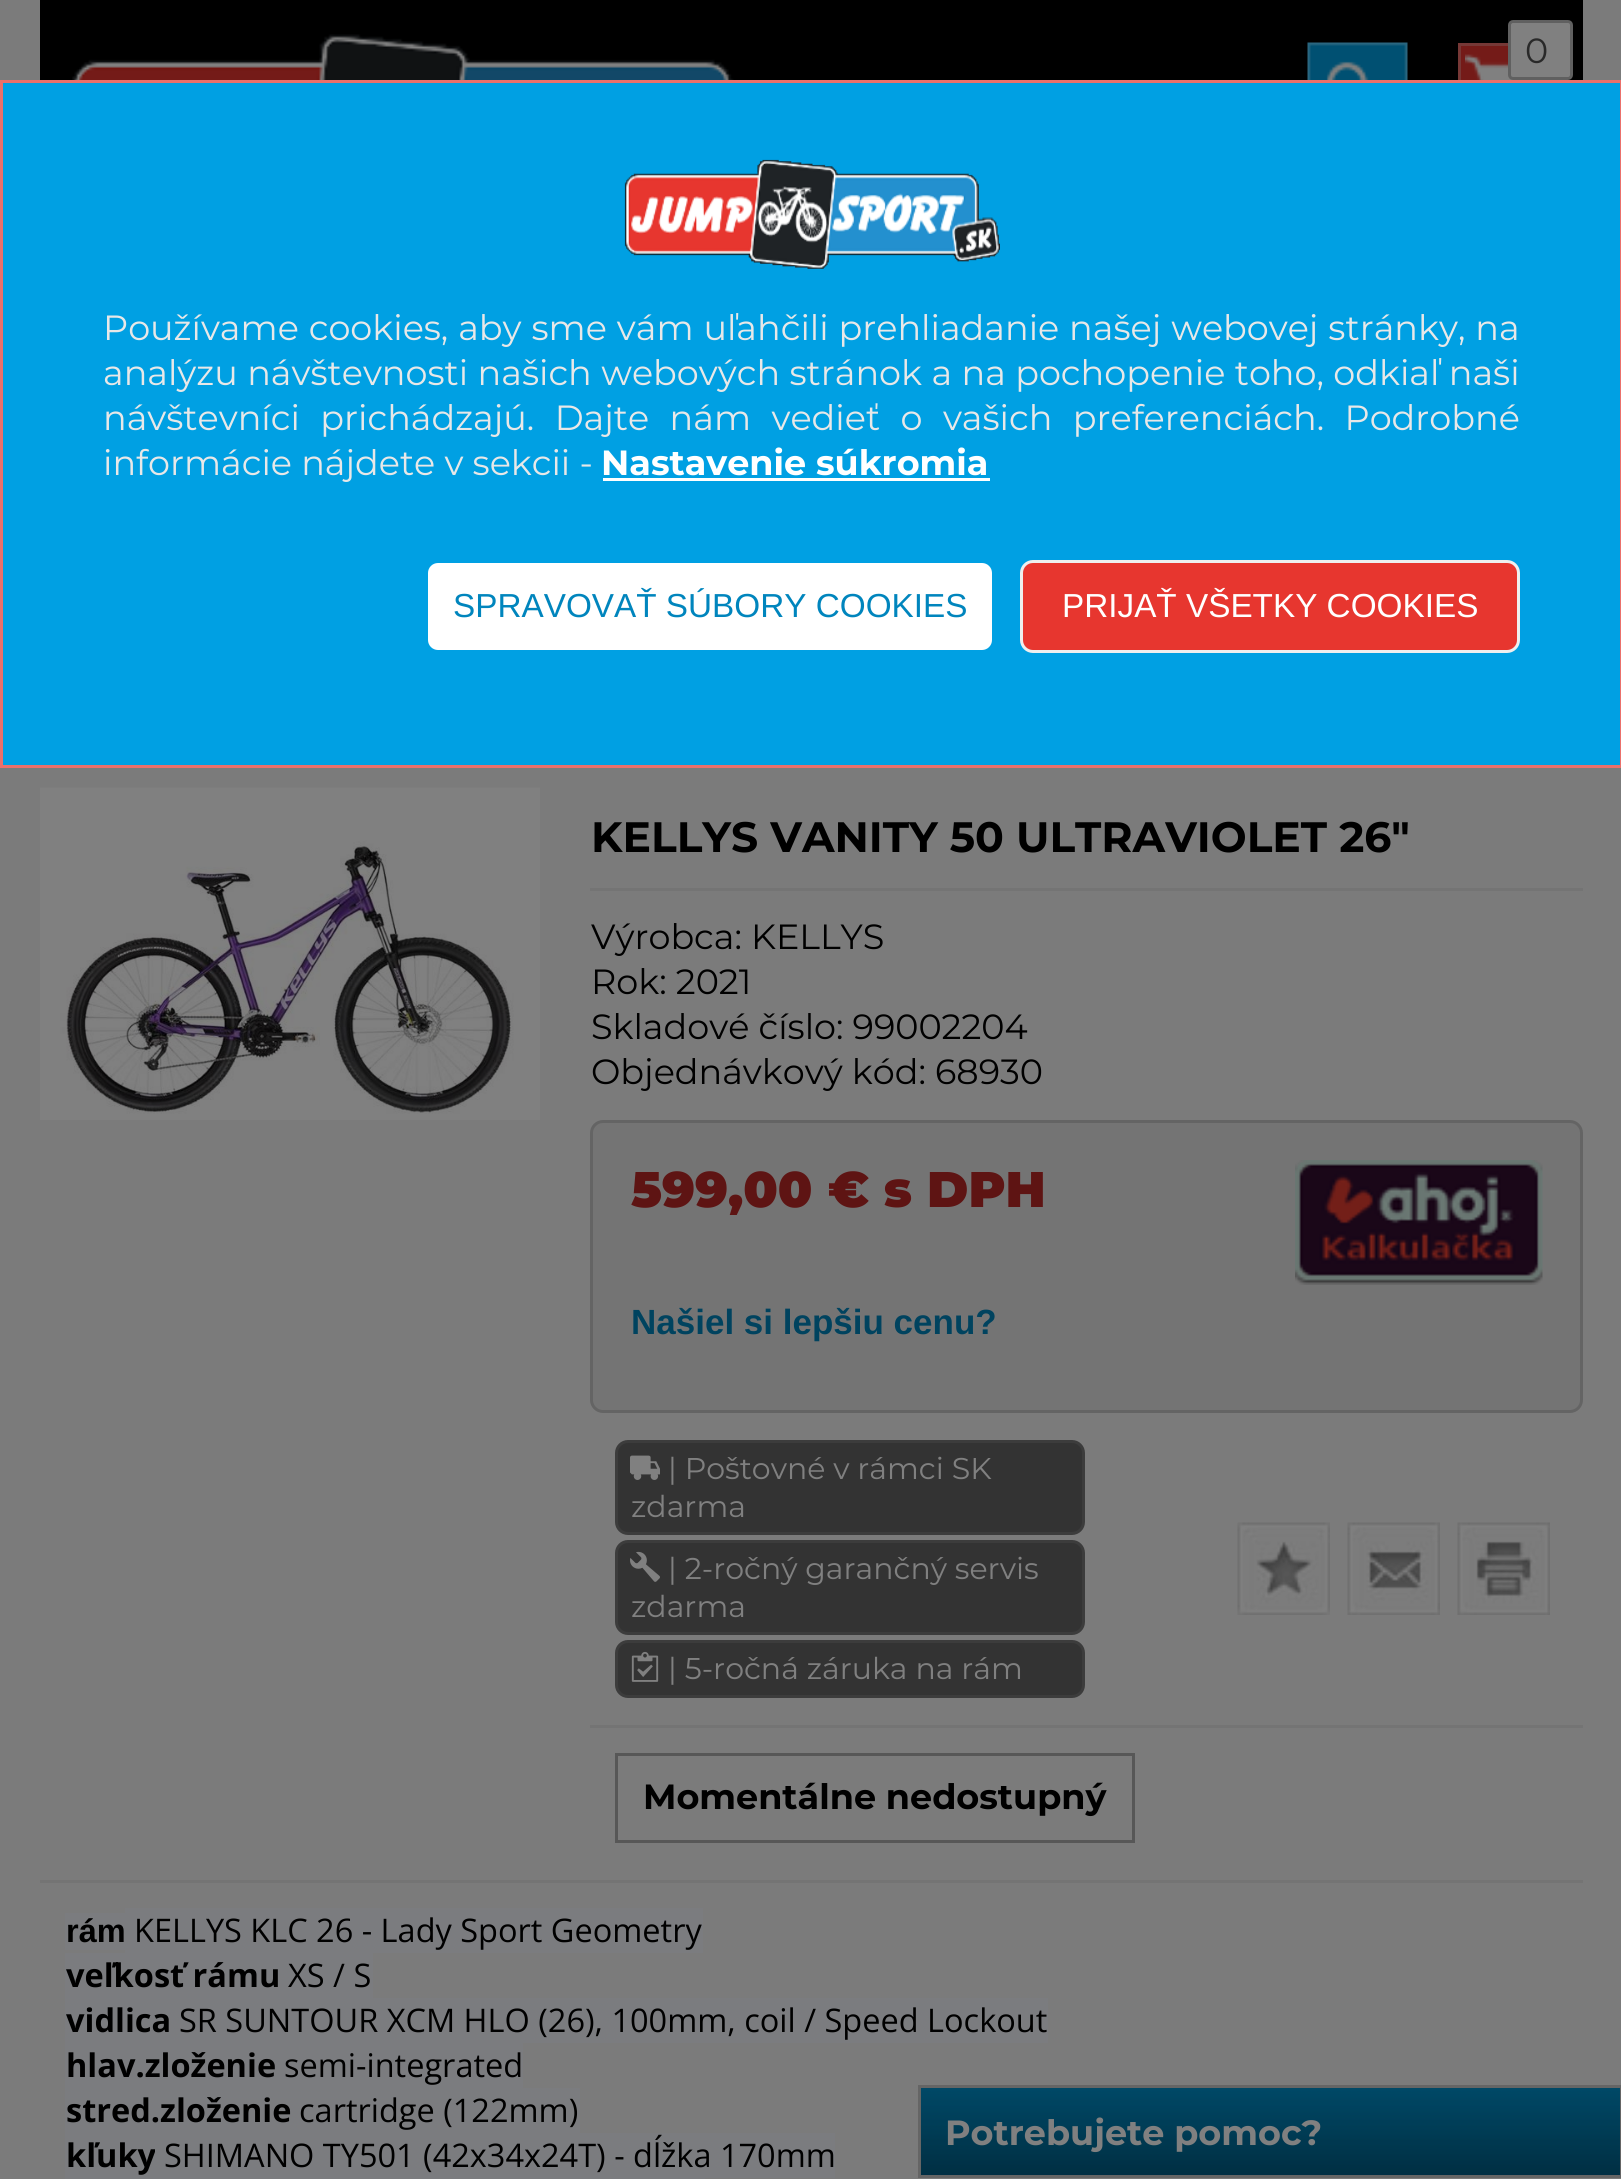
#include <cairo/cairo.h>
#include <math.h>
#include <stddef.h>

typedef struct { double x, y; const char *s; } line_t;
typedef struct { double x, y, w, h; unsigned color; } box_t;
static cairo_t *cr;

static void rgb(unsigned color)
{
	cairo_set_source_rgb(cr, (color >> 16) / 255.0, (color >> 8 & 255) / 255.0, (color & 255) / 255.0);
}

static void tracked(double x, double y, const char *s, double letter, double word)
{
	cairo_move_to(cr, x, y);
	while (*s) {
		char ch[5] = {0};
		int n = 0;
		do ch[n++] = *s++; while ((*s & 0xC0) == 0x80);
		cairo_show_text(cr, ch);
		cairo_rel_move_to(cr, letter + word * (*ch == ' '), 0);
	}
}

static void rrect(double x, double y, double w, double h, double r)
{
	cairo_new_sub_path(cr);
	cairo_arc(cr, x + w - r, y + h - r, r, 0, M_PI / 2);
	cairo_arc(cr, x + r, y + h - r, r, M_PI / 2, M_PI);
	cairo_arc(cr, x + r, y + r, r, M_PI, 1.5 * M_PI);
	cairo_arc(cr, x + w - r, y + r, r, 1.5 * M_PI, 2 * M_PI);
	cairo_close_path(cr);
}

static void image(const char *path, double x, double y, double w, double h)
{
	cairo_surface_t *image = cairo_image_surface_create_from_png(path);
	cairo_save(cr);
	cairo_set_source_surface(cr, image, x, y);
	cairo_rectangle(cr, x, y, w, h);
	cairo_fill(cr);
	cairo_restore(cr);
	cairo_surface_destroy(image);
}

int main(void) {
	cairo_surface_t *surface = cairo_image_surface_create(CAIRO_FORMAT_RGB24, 1621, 2179);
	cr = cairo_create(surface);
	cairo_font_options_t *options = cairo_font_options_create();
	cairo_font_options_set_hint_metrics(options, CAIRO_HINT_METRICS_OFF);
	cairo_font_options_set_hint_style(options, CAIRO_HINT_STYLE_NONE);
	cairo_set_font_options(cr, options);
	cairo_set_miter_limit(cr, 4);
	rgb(0x7b7b7b);
	cairo_paint(cr);
	rgb(0x000000);
	cairo_rectangle(cr, 40, 0, 1543, 80);
	cairo_fill(cr);
	image("img/1.png", 72, 34, 662, 46);
	image("img/2.png", 1307, 42, 101, 38);
	rgb(0x741b18);
	cairo_rectangle(cr, 1461, 46, 47, 34);
	cairo_fill(cr);
	cairo_rectangle(cr, 1459.5, 44.5, 89, 99);
	rgb(0x763836);
	cairo_set_line_width(cr, 3);
	cairo_stroke(cr);
	image("img/3.png", 1465, 54, 48, 26);
	rgb(0x808080);
	rrect(1509.5, 21.5, 62, 57, 3.5);
	cairo_fill_preserve(cr);
	rgb(0x606060);
	cairo_stroke(cr);
	rgb(0x00a0e3);
	cairo_rectangle(cr, 1.5, 81.5, 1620, 685);
	cairo_fill_preserve(cr);
	rgb(0xeb706b);
	cairo_stroke(cr);
	image("img/4.png", 624, 159, 376, 110);
	rgb(0xffffff);
	cairo_rectangle(cr, 603, 478, 387, 3);
	cairo_fill(cr);
	rrect(426.5, 561.5, 567, 90, 11.5);
	cairo_fill_preserve(cr);
	rgb(0x00a0e3);
	cairo_stroke(cr);
	rgb(0xe7362f);
	rrect(1021.5, 561.5, 497, 90, 11.5);
	cairo_fill_preserve(cr);
	rgb(0xefefef);
	cairo_stroke(cr);
	rgb(0x747474);
	cairo_rectangle(cr, 40, 1880, 1543, 3);
	cairo_fill(cr);
	image("img/5.png", 40, 787, 500, 333);
	cairo_rectangle(cr, 590, 888, 993, 3);
	cairo_fill(cr);
	rrect(591.5, 1121.5, 990, 290, 11.5);
	cairo_fill_preserve(cr);
	rgb(0x646464);
	cairo_stroke(cr);
	image("img/6.png", 1295, 1160, 248, 125);
	rgb(0x747474);
	cairo_rectangle(cr, 590, 1725, 993, 3);
	cairo_fill(cr);
	rgb(0x333333);
	rrect(616.5, 1441.5, 467, 92, 11.5);
	cairo_fill_preserve(cr);
	rgb(0x3c3c3c);
	cairo_stroke(cr);
	image("img/7.png", 630, 1455, 30, 25);
	rgb(0x333333);
	rrect(616.5, 1541.5, 467, 92, 11.5);
	cairo_fill_preserve(cr);
	rgb(0x3c3c3c);
	cairo_stroke(cr);
	image("img/8.png", 630, 1551, 30, 31);
	rgb(0x333333);
	rrect(616.5, 1641.5, 467, 55, 11.5);
	cairo_fill_preserve(cr);
	rgb(0x3c3c3c);
	cairo_stroke(cr);
	image("img/9.png", 631, 1651, 28, 31);
	image("img/10.png", 1237, 1522, 93, 93);
	image("img/11.png", 1347, 1522, 93, 93);
	image("img/12.png", 1457, 1522, 93, 93);
	cairo_rectangle(cr, 616.5, 1754.5, 517, 87);
	rgb(0x575757);
	cairo_stroke(cr);
	{
		static const box_t items[] = {
			{65, 1913, 60, 37, 0x7b7c7f},
			{125, 1908, 578, 45, 0x7b7c7f},
			{65, 1953, 308, 45, 0x7b7c7f},
			{65, 1998, 983, 45, 0x7b7c7f},
			{65, 2043, 458, 45, 0x7b7c7f},
			{65, 2088, 515, 45, 0x7b7c7f},
			{65, 2133, 90, 45, 0x7b7c7f},
			{65, 2178, 640, 1, 0x7b7c7f},
		};
		for (size_t i = 0; i < sizeof items / sizeof *items; i++) {
			rgb(items[i].color);
			cairo_rectangle(cr, items[i].x, items[i].y, items[i].w, items[i].h);
			cairo_fill(cr);
		}
	}
	image("img/13.png", 921, 2088, 699, 87);
	cairo_rectangle(cr, 919.5, 2086.5, 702, 90);
	rgb(0x656565);
	cairo_stroke(cr);
	cairo_select_font_face(cr, "Montserrat", CAIRO_FONT_SLANT_NORMAL, CAIRO_FONT_WEIGHT_NORMAL);
	cairo_set_font_size(cr, 35);
	rgb(0x292929);
	cairo_move_to(cr, 1525, 63);
	cairo_show_text(cr, "0");
	rgb(0xe8e8e8);
	tracked(103, 340, "Používame cookies, aby sme vám uľahčili prehliadanie našej webovej stránky, na", 0, 0.75);
	tracked(103, 385, "analýzu návštevnosti našich webových stránok a na pochopenie toho, odkiaľ naši", 0, 0.25);
	tracked(103, 430, "návštevníci prichádzajú. Dajte nám vedieť o vašich preferenciách. Podrobné", 0, 11.25);
	cairo_move_to(cr, 103, 475);
	cairo_show_text(cr, "informácie nájdete v sekcii -");
	cairo_select_font_face(cr, "Montserrat", CAIRO_FONT_SLANT_NORMAL, CAIRO_FONT_WEIGHT_BOLD);
	rgb(0xffffff);
	cairo_move_to(cr, 601, 475);
	cairo_show_text(cr, "Nastavenie súkromia");
	cairo_select_font_face(cr, "Liberation Sans", CAIRO_FONT_SLANT_NORMAL, CAIRO_FONT_WEIGHT_NORMAL);
	cairo_set_font_size(cr, 33.3);
	rgb(0x0085bd);
	cairo_move_to(cr, 453, 617);
	cairo_show_text(cr, "SPRAVOVAŤ SÚBORY COOKIES");
	rgb(0xffffff);
	cairo_move_to(cr, 1062, 617);
	cairo_show_text(cr, "PRIJAŤ VŠETKY COOKIES");
	cairo_select_font_face(cr, "Montserrat", CAIRO_FONT_SLANT_NORMAL, CAIRO_FONT_WEIGHT_BOLD);
	cairo_set_font_size(cr, 42.5);
	rgb(0x000000);
	cairo_move_to(cr, 591, 852);
	cairo_show_text(cr, "KELLYS VANITY 50 ULTRAVIOLET 26\"");
	cairo_select_font_face(cr, "Montserrat", CAIRO_FONT_SLANT_NORMAL, CAIRO_FONT_WEIGHT_NORMAL);
	cairo_set_font_size(cr, 35);
	{
		static const line_t items[] = {
			{591, 949, "Výrobca: KELLYS"},
			{591, 994, "Rok: 2021"},
			{591, 1039, "Skladové číslo: 99002204"},
			{591, 1084, "Objednávkový kód: 68930"},
		};
		for (size_t i = 0; i < sizeof items / sizeof *items; i++) {
			cairo_move_to(cr, items[i].x, items[i].y);
			cairo_show_text(cr, items[i].s);
		}
	}
	cairo_select_font_face(cr, "Montserrat Black", CAIRO_FONT_SLANT_NORMAL, CAIRO_FONT_WEIGHT_NORMAL);
	cairo_set_font_size(cr, 50);
	rgb(0x5e1413);
	cairo_move_to(cr, 631, 1207);
	cairo_show_text(cr, "599,00 € s DPH");
	cairo_select_font_face(cr, "Liberation Sans", CAIRO_FONT_SLANT_NORMAL, CAIRO_FONT_WEIGHT_BOLD);
	cairo_set_font_size(cr, 35);
	rgb(0x00435f);
	cairo_move_to(cr, 631, 1334);
	cairo_show_text(cr, "Našiel si lepšiu cenu?");
	cairo_select_font_face(cr, "Montserrat", CAIRO_FONT_SLANT_NORMAL, CAIRO_FONT_WEIGHT_NORMAL);
	cairo_set_font_size(cr, 30);
	rgb(0x808080);
	{
		static const line_t items[] = {
			{668, 1479, "| Poštovné v rámci SK"},
			{631, 1517, "zdarma"},
			{668, 1579, "| 2-ročný garančný servis"},
			{631, 1617, "zdarma"},
			{668, 1679, "| 5-ročná záruka na rám"},
		};
		for (size_t i = 0; i < sizeof items / sizeof *items; i++) {
			cairo_move_to(cr, items[i].x, items[i].y);
			cairo_show_text(cr, items[i].s);
		}
	}
	cairo_select_font_face(cr, "Montserrat", CAIRO_FONT_SLANT_NORMAL, CAIRO_FONT_WEIGHT_BOLD);
	cairo_set_font_size(cr, 35);
	rgb(0x000000);
	cairo_move_to(cr, 643, 1809);
	cairo_show_text(cr, "Momentálne nedostupný");
	cairo_select_font_face(cr, "Liberation Sans", CAIRO_FONT_SLANT_NORMAL, CAIRO_FONT_WEIGHT_BOLD);
	cairo_set_font_size(cr, 32.5);
	cairo_move_to(cr, 66, 1942);
	cairo_show_text(cr, "rám");
	cairo_select_font_face(cr, "Open Sans", CAIRO_FONT_SLANT_NORMAL, CAIRO_FONT_WEIGHT_NORMAL);
	cairo_move_to(cr, 134, 1942);
	cairo_show_text(cr, "KELLYS KLC 26 - Lady Sport Geometry");
	cairo_select_font_face(cr, "Open Sans", CAIRO_FONT_SLANT_NORMAL, CAIRO_FONT_WEIGHT_BOLD);
	cairo_move_to(cr, 66, 1987);
	cairo_show_text(cr, "veľkosť rámu");
	cairo_select_font_face(cr, "Open Sans", CAIRO_FONT_SLANT_NORMAL, CAIRO_FONT_WEIGHT_NORMAL);
	cairo_move_to(cr, 288, 1987);
	cairo_show_text(cr, "XS / S");
	cairo_select_font_face(cr, "Open Sans", CAIRO_FONT_SLANT_NORMAL, CAIRO_FONT_WEIGHT_BOLD);
	cairo_move_to(cr, 66, 2032);
	cairo_show_text(cr, "vidlica");
	cairo_select_font_face(cr, "Open Sans", CAIRO_FONT_SLANT_NORMAL, CAIRO_FONT_WEIGHT_NORMAL);
	cairo_move_to(cr, 179, 2032);
	cairo_show_text(cr, "SR SUNTOUR XCM HLO (26), 100mm, coil / Speed Lockout");
	cairo_select_font_face(cr, "Open Sans", CAIRO_FONT_SLANT_NORMAL, CAIRO_FONT_WEIGHT_BOLD);
	cairo_move_to(cr, 66, 2077);
	cairo_show_text(cr, "hlav.zloženie");
	cairo_select_font_face(cr, "Open Sans", CAIRO_FONT_SLANT_NORMAL, CAIRO_FONT_WEIGHT_NORMAL);
	cairo_move_to(cr, 284, 2077);
	cairo_show_text(cr, "semi-integrated");
	cairo_select_font_face(cr, "Open Sans", CAIRO_FONT_SLANT_NORMAL, CAIRO_FONT_WEIGHT_BOLD);
	cairo_move_to(cr, 66, 2122);
	cairo_show_text(cr, "stred.zloženie");
	cairo_select_font_face(cr, "Open Sans", CAIRO_FONT_SLANT_NORMAL, CAIRO_FONT_WEIGHT_NORMAL);
	cairo_move_to(cr, 299, 2122);
	cairo_show_text(cr, "cartridge (122mm)");
	cairo_select_font_face(cr, "Open Sans", CAIRO_FONT_SLANT_NORMAL, CAIRO_FONT_WEIGHT_BOLD);
	cairo_move_to(cr, 66, 2167);
	cairo_show_text(cr, "kľuky");
	rgb(0x7b7c7f);
	cairo_rectangle(cr, 155, 2133, 680, 45);
	cairo_fill(cr);
	cairo_select_font_face(cr, "Open Sans", CAIRO_FONT_SLANT_NORMAL, CAIRO_FONT_WEIGHT_NORMAL);
	rgb(0x000000);
	cairo_move_to(cr, 164, 2167);
	cairo_show_text(cr, "SHIMANO TY501 (42x34x24T) - dĺžka 170mm");
	cairo_select_font_face(cr, "Montserrat", CAIRO_FONT_SLANT_NORMAL, CAIRO_FONT_WEIGHT_BOLD);
	cairo_set_font_size(cr, 35);
	rgb(0x808080);
	cairo_move_to(cr, 945, 2145);
	cairo_show_text(cr, "Potrebujete pomoc?");
	cairo_surface_write_to_png(surface, "page.png");
	cairo_font_options_destroy(options);
	cairo_destroy(cr);
	cairo_surface_destroy(surface);
	return 0;
}
